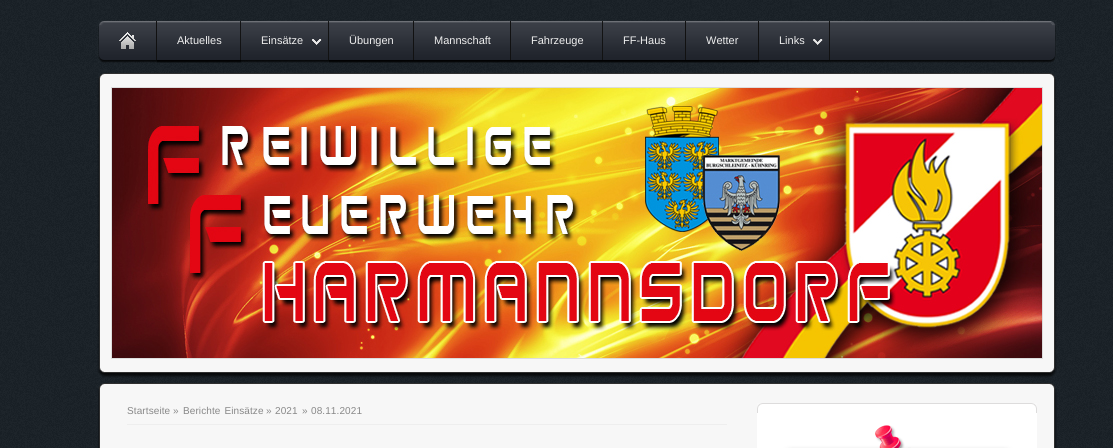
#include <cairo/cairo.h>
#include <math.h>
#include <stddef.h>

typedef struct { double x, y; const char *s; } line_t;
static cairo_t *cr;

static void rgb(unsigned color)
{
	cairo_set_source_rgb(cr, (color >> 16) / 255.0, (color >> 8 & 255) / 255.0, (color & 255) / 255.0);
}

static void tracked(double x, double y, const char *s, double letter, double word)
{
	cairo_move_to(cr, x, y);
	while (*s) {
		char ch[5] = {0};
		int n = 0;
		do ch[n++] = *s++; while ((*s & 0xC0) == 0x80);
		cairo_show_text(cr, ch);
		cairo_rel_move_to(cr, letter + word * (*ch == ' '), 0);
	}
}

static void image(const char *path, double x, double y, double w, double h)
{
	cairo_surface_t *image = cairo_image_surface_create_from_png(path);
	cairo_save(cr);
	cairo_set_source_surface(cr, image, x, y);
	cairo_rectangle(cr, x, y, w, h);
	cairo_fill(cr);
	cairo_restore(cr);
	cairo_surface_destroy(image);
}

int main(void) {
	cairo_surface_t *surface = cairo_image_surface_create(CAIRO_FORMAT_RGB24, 1113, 448);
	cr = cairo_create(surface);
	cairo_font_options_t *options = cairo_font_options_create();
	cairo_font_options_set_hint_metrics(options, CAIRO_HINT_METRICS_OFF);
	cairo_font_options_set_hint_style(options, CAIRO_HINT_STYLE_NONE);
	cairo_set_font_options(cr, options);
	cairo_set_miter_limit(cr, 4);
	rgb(0xffffff);
	cairo_paint(cr);
	image("img/1.png", 0, 0, 1113, 448);
	image("img/2.png", 97, 20, 960, 43);
	image("img/3.png", 100, 21, 57, 39);
	image("img/4.png", 157, 20, 84, 43);
	image("img/5.png", 250, 20, 79, 43);
	image("img/6.png", 329, 20, 85, 43);
	image("img/7.png", 414, 20, 97, 43);
	image("img/8.png", 511, 20, 92, 43);
	image("img/9.png", 603, 20, 83, 43);
	image("img/10.png", 686, 20, 73, 43);
	image("img/11.png", 762, 20, 68, 43);
	image("img/12.png", 97, 63, 960, 320);
	cairo_rectangle(cr, 111.5, 87.5, 931, 271);
	rgb(0xdcdddd);
	cairo_set_line_width(cr, 1);
	cairo_stroke(cr);
	image("img/13.png", 112, 88, 930, 270);
	image("img/14.png", 97, 383, 960, 10);
	image("img/15.png", 98, 393, 959, 55);
	rgb(0xeeeeee);
	cairo_rectangle(cr, 127, 424, 600, 1);
	cairo_fill(cr);
	rgb(0xffffff);
	cairo_rectangle(cr, 757, 413, 280, 35);
	cairo_fill(cr);
	image("img/16.png", 757, 403, 280, 10);
	image("img/17.png", 783, 423, 230, 25);
	cairo_select_font_face(cr, "Liberation Sans", CAIRO_FONT_SLANT_NORMAL, CAIRO_FONT_WEIGHT_NORMAL);
	cairo_set_font_size(cr, 11);
	rgb(0xeeeeee);
	{
		static const line_t items[] = {
			{177, 44, "Aktuelles"},
			{261, 44, "Einsätze"},
			{349, 44, "Übungen"},
			{434, 44, "Mannschaft"},
			{531, 44, "Fahrzeuge"},
			{623, 44, "FF-Haus"},
			{706, 44, "Wetter"},
			{779, 44, "Links"},
		};
		for (size_t i = 0; i < sizeof items / sizeof *items; i++) {
			cairo_move_to(cr, items[i].x, items[i].y);
			cairo_show_text(cr, items[i].s);
		}
	}
	cairo_set_font_size(cr, 10);
	rgb(0x888888);
	tracked(127, 414, "Startseite", 0.1, 0);
	tracked(173, 414, "»", 0.1, 0);
	tracked(183, 414, "Berichte Einsätze", 0.1, 1);
	{
		static const line_t items[] = {
			{266, 414, "»"},
			{275, 414, "2021"},
			{302, 414, "»"},
			{311, 414, "08.11.2021"},
		};
		for (size_t i = 0; i < sizeof items / sizeof *items; i++) {
			tracked(items[i].x, items[i].y, items[i].s, 0.1, 0);
		}
	}
	cairo_surface_write_to_png(surface, "page.png");
	cairo_font_options_destroy(options);
	cairo_destroy(cr);
	cairo_surface_destroy(surface);
	return 0;
}
